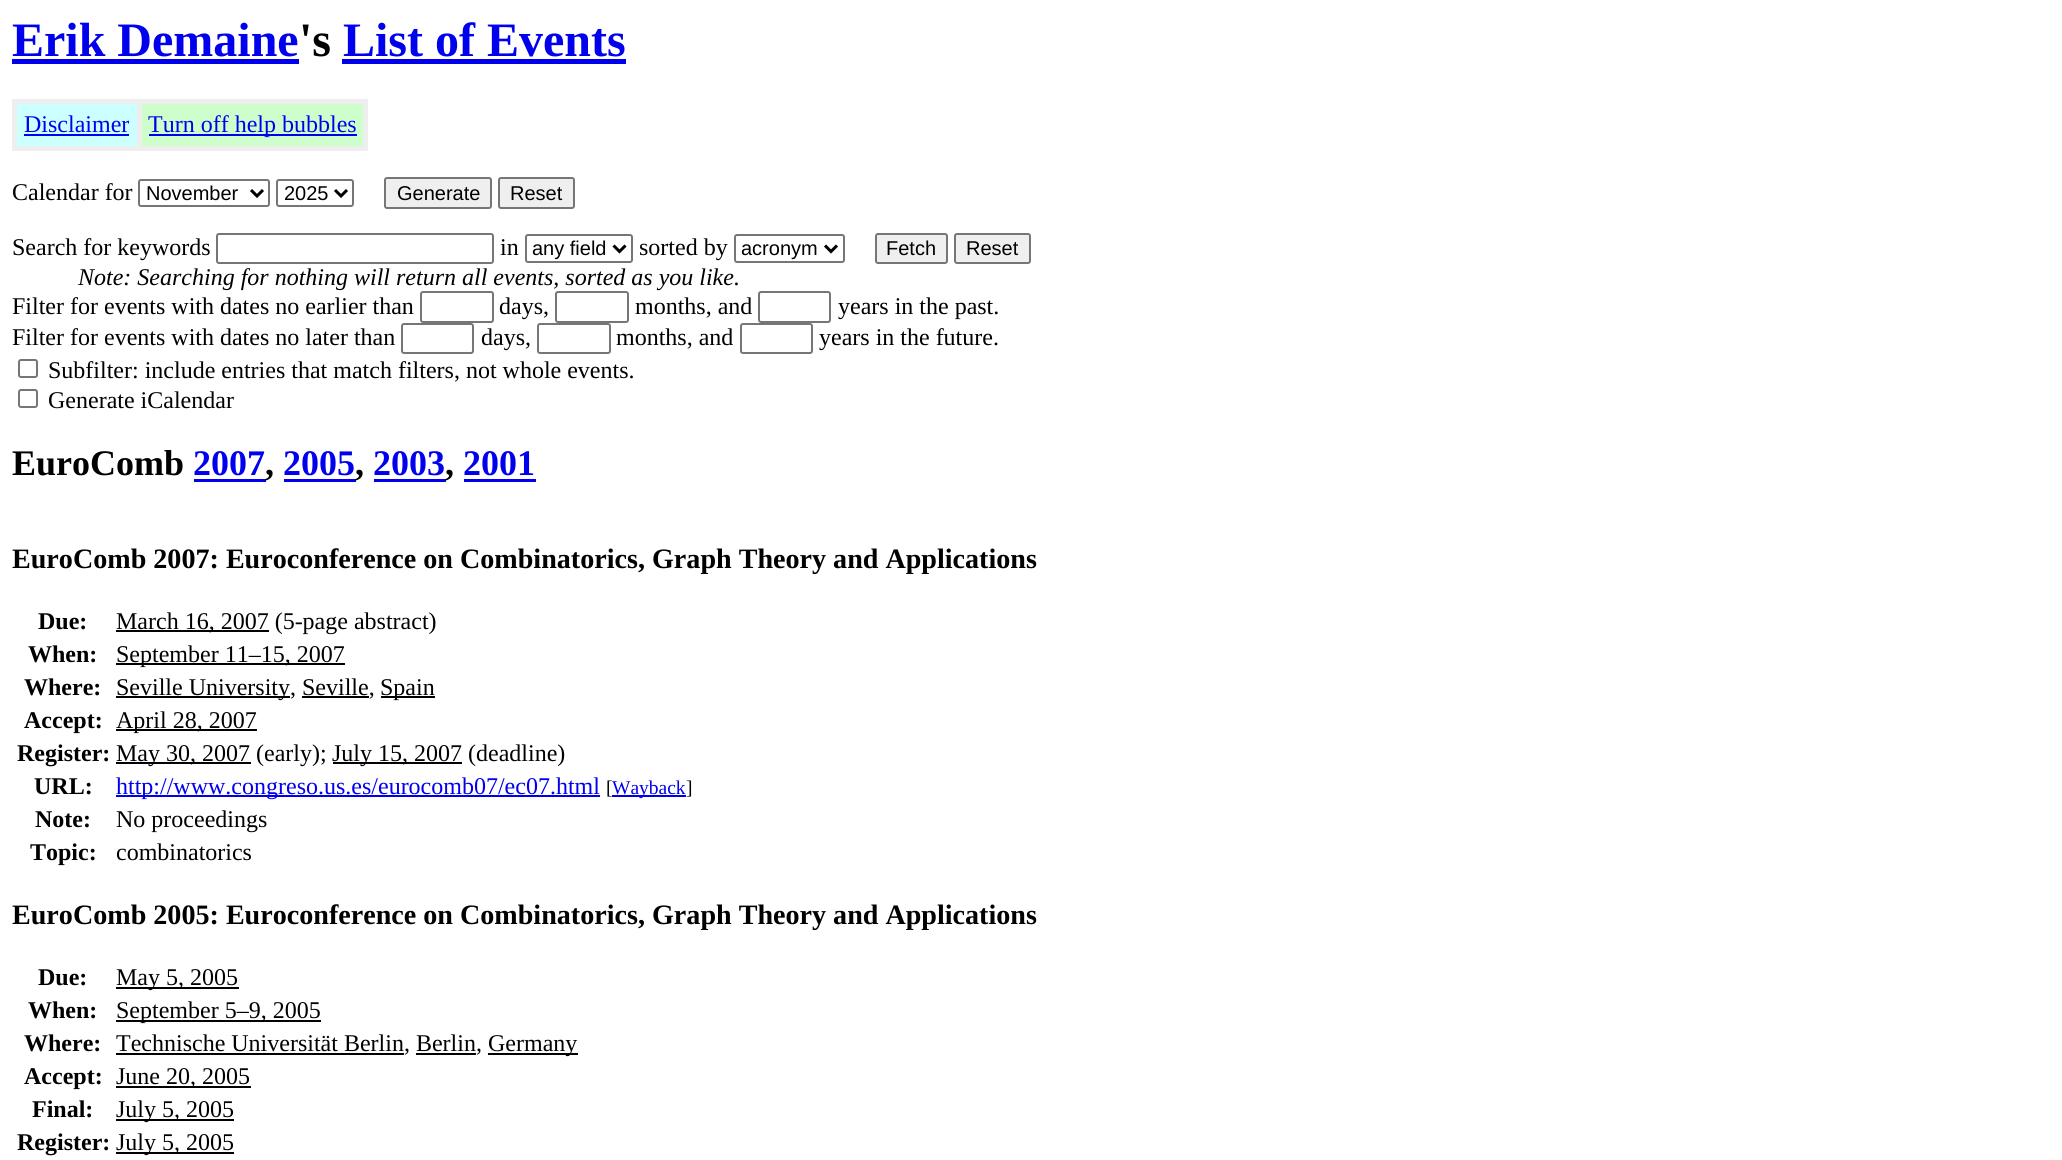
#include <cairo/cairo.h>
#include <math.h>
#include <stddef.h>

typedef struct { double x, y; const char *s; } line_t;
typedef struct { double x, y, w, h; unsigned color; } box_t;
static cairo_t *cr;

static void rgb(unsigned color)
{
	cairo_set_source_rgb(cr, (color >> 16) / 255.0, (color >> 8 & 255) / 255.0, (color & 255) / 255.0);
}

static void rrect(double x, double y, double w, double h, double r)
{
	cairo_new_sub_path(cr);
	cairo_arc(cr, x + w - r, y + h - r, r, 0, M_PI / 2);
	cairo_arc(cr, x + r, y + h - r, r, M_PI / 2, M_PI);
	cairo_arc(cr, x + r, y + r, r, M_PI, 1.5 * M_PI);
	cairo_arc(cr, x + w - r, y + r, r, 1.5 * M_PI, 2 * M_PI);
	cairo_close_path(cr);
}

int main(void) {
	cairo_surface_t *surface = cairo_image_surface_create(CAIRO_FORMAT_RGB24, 2062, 1160);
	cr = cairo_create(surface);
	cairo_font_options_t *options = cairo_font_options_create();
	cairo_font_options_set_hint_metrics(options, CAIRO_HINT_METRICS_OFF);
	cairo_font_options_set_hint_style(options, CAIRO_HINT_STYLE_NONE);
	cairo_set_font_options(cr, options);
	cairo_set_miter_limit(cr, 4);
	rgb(0xffffff);
	cairo_paint(cr);
	{
		static const box_t items[] = {
			{12, 59, 287, 5, 0x0000ee},
			{342, 59, 284, 5, 0x0000ee},
			{17, 104, 120, 42, 0xccffff},
			{137, 99, 231, 5, 0xeeeeee},
			{363, 99, 5, 51, 0xeeeeee},
			{137, 146, 231, 5, 0xeeeeee},
			{137, 99, 5, 51, 0xeeeeee},
			{12, 99, 129, 5, 0xeeeeee},
			{12, 146, 129, 5, 0xeeeeee},
			{12, 99, 5, 51, 0xeeeeee},
			{24, 134, 105, 2, 0x0000ee},
			{142, 104, 221, 42, 0xccffcc},
			{149, 134, 208, 2, 0x0000ee},
		};
		for (size_t i = 0; i < sizeof items / sizeof *items; i++) {
			rgb(items[i].color);
			cairo_rectangle(cr, items[i].x, items[i].y, items[i].w, items[i].h);
			cairo_fill(cr);
		}
	}
	rrect(139, 180, 130, 26, 2);
	rgb(0x767676);
	cairo_stroke(cr);
	cairo_new_path(cr);
	cairo_move_to(cr, 251, 190);
	cairo_line_to(cr, 257, 196);
	cairo_line_to(cr, 263, 190);
	rgb(0x000000);
	cairo_set_line_width(cr, 3);
	cairo_stroke(cr);
	rrect(277, 180, 76, 26, 2);
	rgb(0x767676);
	cairo_set_line_width(cr, 2);
	cairo_stroke(cr);
	cairo_new_path(cr);
	cairo_move_to(cr, 335, 190);
	cairo_line_to(cr, 341, 196);
	cairo_line_to(cr, 347, 190);
	rgb(0x000000);
	cairo_set_line_width(cr, 3);
	cairo_stroke(cr);
	rgb(0xefefef);
	rrect(385, 178, 106, 30, 2);
	cairo_fill_preserve(cr);
	rgb(0x767676);
	cairo_set_line_width(cr, 2);
	cairo_stroke(cr);
	rgb(0xefefef);
	rrect(499, 178, 75, 30, 2);
	cairo_fill_preserve(cr);
	rgb(0x767676);
	cairo_stroke(cr);
	rrect(217, 234, 276, 29, 2);
	cairo_stroke(cr);
	rrect(526, 235, 106, 27, 2);
	cairo_stroke(cr);
	cairo_new_path(cr);
	cairo_move_to(cr, 613.5, 245.5);
	cairo_line_to(cr, 619.5, 251.5);
	cairo_line_to(cr, 625.5, 245.5);
	rgb(0x000000);
	cairo_set_line_width(cr, 3);
	cairo_stroke(cr);
	rrect(735, 235, 109, 27, 2);
	rgb(0x767676);
	cairo_set_line_width(cr, 2);
	cairo_stroke(cr);
	cairo_new_path(cr);
	cairo_move_to(cr, 825, 245.5);
	cairo_line_to(cr, 831, 251.5);
	cairo_line_to(cr, 837, 245.5);
	rgb(0x000000);
	cairo_set_line_width(cr, 3);
	cairo_stroke(cr);
	rgb(0xefefef);
	rrect(876, 234, 71, 29, 2);
	cairo_fill_preserve(cr);
	rgb(0x767676);
	cairo_set_line_width(cr, 2);
	cairo_stroke(cr);
	rgb(0xefefef);
	rrect(955, 234, 75, 29, 2);
	cairo_fill_preserve(cr);
	rgb(0x767676);
	cairo_stroke(cr);
	rrect(421, 292, 72, 30, 2);
	cairo_stroke(cr);
	rrect(556, 292, 72, 30, 2);
	cairo_stroke(cr);
	rrect(759, 292, 71, 30, 2);
	cairo_stroke(cr);
	rrect(402, 324, 71, 29, 2);
	cairo_stroke(cr);
	rrect(538, 324, 72, 29, 2);
	cairo_stroke(cr);
	rrect(741, 324, 71, 29, 2);
	cairo_stroke(cr);
	rrect(19, 360, 18, 17, 2);
	cairo_stroke(cr);
	rrect(19, 390, 18, 17, 2);
	cairo_stroke(cr);
	{
		static const box_t items[] = {
			{194, 479, 72, 3, 0x0000ee},
			{284, 479, 72, 3, 0x0000ee},
			{374, 479, 72, 3, 0x0000ee},
			{464, 479, 72, 3, 0x0000ee},
			{116, 630, 153, 2, 0x000000},
			{116, 663, 229, 2, 0x000000},
			{116, 696, 174, 2, 0x000000},
			{381, 696, 54, 2, 0x000000},
			{302, 696, 67, 2, 0x000000},
			{116, 729, 141, 2, 0x000000},
			{116, 762, 135, 2, 0x000000},
			{333, 762, 129, 2, 0x000000},
			{116, 795, 484, 2, 0x0000ee},
			{612, 795, 74, 2, 0x0000ee},
			{116, 987, 123, 2, 0x000000},
			{116, 1020, 205, 2, 0x000000},
			{116, 1053, 288, 2, 0x000000},
			{488, 1053, 90, 2, 0x000000},
			{416, 1053, 60, 2, 0x000000},
			{116, 1086, 135, 2, 0x000000},
			{116, 1119, 118, 2, 0x000000},
			{116, 1152, 118, 2, 0x000000},
		};
		for (size_t i = 0; i < sizeof items / sizeof *items; i++) {
			rgb(items[i].color);
			cairo_rectangle(cr, items[i].x, items[i].y, items[i].w, items[i].h);
			cairo_fill(cr);
		}
	}
	cairo_select_font_face(cr, "Liberation Serif", CAIRO_FONT_SLANT_NORMAL, CAIRO_FONT_WEIGHT_BOLD);
	cairo_set_font_size(cr, 48);
	rgb(0x0000ee);
	cairo_move_to(cr, 12, 56);
	cairo_show_text(cr, "Erik Demaine");
	rgb(0x000000);
	cairo_move_to(cr, 299, 56);
	cairo_show_text(cr, "'s");
	rgb(0x0000ee);
	cairo_move_to(cr, 343, 56);
	cairo_show_text(cr, "List of Events");
	cairo_select_font_face(cr, "Liberation Serif", CAIRO_FONT_SLANT_NORMAL, CAIRO_FONT_WEIGHT_NORMAL);
	cairo_set_font_size(cr, 24);
	cairo_move_to(cr, 24, 132);
	cairo_show_text(cr, "Disclaimer");
	cairo_move_to(cr, 148, 132);
	cairo_show_text(cr, "Turn off help bubbles");
	rgb(0x000000);
	cairo_move_to(cr, 12, 200);
	cairo_show_text(cr, "Calendar for");
	cairo_select_font_face(cr, "Liberation Sans", CAIRO_FONT_SLANT_NORMAL, CAIRO_FONT_WEIGHT_NORMAL);
	cairo_set_font_size(cr, 20);
	{
		static const line_t items[] = {
			{146, 200, "November"},
			{284, 200, "2025"},
			{397, 200, "Generate"},
			{510, 200, "Reset"},
		};
		for (size_t i = 0; i < sizeof items / sizeof *items; i++) {
			cairo_move_to(cr, items[i].x, items[i].y);
			cairo_show_text(cr, items[i].s);
		}
	}
	cairo_select_font_face(cr, "Liberation Serif", CAIRO_FONT_SLANT_NORMAL, CAIRO_FONT_WEIGHT_NORMAL);
	cairo_set_font_size(cr, 24);
	cairo_move_to(cr, 12, 255);
	cairo_show_text(cr, "Search for keywords");
	cairo_move_to(cr, 500, 255);
	cairo_show_text(cr, "in");
	cairo_select_font_face(cr, "Liberation Sans", CAIRO_FONT_SLANT_NORMAL, CAIRO_FONT_WEIGHT_NORMAL);
	cairo_set_font_size(cr, 20);
	cairo_move_to(cr, 532, 255);
	cairo_show_text(cr, "any field");
	cairo_select_font_face(cr, "Liberation Serif", CAIRO_FONT_SLANT_NORMAL, CAIRO_FONT_WEIGHT_NORMAL);
	cairo_set_font_size(cr, 24);
	cairo_move_to(cr, 639, 255);
	cairo_show_text(cr, "sorted by");
	cairo_select_font_face(cr, "Liberation Sans", CAIRO_FONT_SLANT_NORMAL, CAIRO_FONT_WEIGHT_NORMAL);
	cairo_set_font_size(cr, 20);
	{
		static const line_t items[] = {
			{741, 255, "acronym"},
			{886, 255, "Fetch"},
			{966, 255, "Reset"},
		};
		for (size_t i = 0; i < sizeof items / sizeof *items; i++) {
			cairo_move_to(cr, items[i].x, items[i].y);
			cairo_show_text(cr, items[i].s);
		}
	}
	cairo_select_font_face(cr, "Liberation Serif", CAIRO_FONT_SLANT_ITALIC, CAIRO_FONT_WEIGHT_NORMAL);
	cairo_set_font_size(cr, 24);
	cairo_move_to(cr, 78, 285);
	cairo_show_text(cr, "Note: Searching for nothing will return all events, sorted as you like.");
	cairo_select_font_face(cr, "Liberation Serif", CAIRO_FONT_SLANT_NORMAL, CAIRO_FONT_WEIGHT_NORMAL);
	{
		static const line_t items[] = {
			{12, 314, "Filter for events with dates no earlier than"},
			{499, 314, "days,"},
			{635, 314, "months, and"},
			{838, 314, "years in the past."},
			{12, 345, "Filter for events with dates no later than"},
			{481, 345, "days,"},
			{616, 345, "months, and"},
			{819, 345, "years in the future."},
			{48, 378, "Subfilter: include entries that match filters, not whole events."},
			{48, 408, "Generate iCalendar"},
		};
		for (size_t i = 0; i < sizeof items / sizeof *items; i++) {
			cairo_move_to(cr, items[i].x, items[i].y);
			cairo_show_text(cr, items[i].s);
		}
	}
	cairo_select_font_face(cr, "Liberation Serif", CAIRO_FONT_SLANT_NORMAL, CAIRO_FONT_WEIGHT_BOLD);
	cairo_set_font_size(cr, 36);
	cairo_move_to(cr, 12, 475);
	cairo_show_text(cr, "EuroComb");
	rgb(0x0000ee);
	cairo_move_to(cr, 193, 475);
	cairo_show_text(cr, "2007");
	rgb(0x000000);
	cairo_move_to(cr, 265, 475);
	cairo_show_text(cr, ",");
	rgb(0x0000ee);
	cairo_move_to(cr, 283, 475);
	cairo_show_text(cr, "2005");
	rgb(0x000000);
	cairo_move_to(cr, 355, 475);
	cairo_show_text(cr, ",");
	rgb(0x0000ee);
	cairo_move_to(cr, 373, 475);
	cairo_show_text(cr, "2003");
	rgb(0x000000);
	cairo_move_to(cr, 445, 475);
	cairo_show_text(cr, ",");
	rgb(0x0000ee);
	cairo_move_to(cr, 463, 475);
	cairo_show_text(cr, "2001");
	cairo_set_font_size(cr, 28.1);
	rgb(0x000000);
	cairo_move_to(cr, 12, 568);
	cairo_show_text(cr, "EuroComb 2007: Euroconference on Combinatorics, Graph Theory and Applications");
	cairo_set_font_size(cr, 24);
	cairo_move_to(cr, 38, 629);
	cairo_show_text(cr, "Due:");
	cairo_select_font_face(cr, "Liberation Serif", CAIRO_FONT_SLANT_NORMAL, CAIRO_FONT_WEIGHT_NORMAL);
	cairo_move_to(cr, 116, 629);
	cairo_show_text(cr, "March 16, 2007 (5-page abstract)");
	cairo_select_font_face(cr, "Liberation Serif", CAIRO_FONT_SLANT_NORMAL, CAIRO_FONT_WEIGHT_BOLD);
	cairo_move_to(cr, 28, 662);
	cairo_show_text(cr, "When:");
	cairo_select_font_face(cr, "Liberation Serif", CAIRO_FONT_SLANT_NORMAL, CAIRO_FONT_WEIGHT_NORMAL);
	cairo_move_to(cr, 116, 662);
	cairo_show_text(cr, "September 11–15, 2007");
	cairo_select_font_face(cr, "Liberation Serif", CAIRO_FONT_SLANT_NORMAL, CAIRO_FONT_WEIGHT_BOLD);
	cairo_move_to(cr, 24, 695);
	cairo_show_text(cr, "Where:");
	cairo_select_font_face(cr, "Liberation Serif", CAIRO_FONT_SLANT_NORMAL, CAIRO_FONT_WEIGHT_NORMAL);
	cairo_move_to(cr, 116, 695);
	cairo_show_text(cr, "Seville University, Seville,");
	cairo_move_to(cr, 380, 695);
	cairo_show_text(cr, "Spain");
	cairo_select_font_face(cr, "Liberation Serif", CAIRO_FONT_SLANT_NORMAL, CAIRO_FONT_WEIGHT_BOLD);
	cairo_move_to(cr, 24, 728);
	cairo_show_text(cr, "Accept:");
	cairo_select_font_face(cr, "Liberation Serif", CAIRO_FONT_SLANT_NORMAL, CAIRO_FONT_WEIGHT_NORMAL);
	cairo_move_to(cr, 116, 728);
	cairo_show_text(cr, "April 28, 2007");
	cairo_select_font_face(cr, "Liberation Serif", CAIRO_FONT_SLANT_NORMAL, CAIRO_FONT_WEIGHT_BOLD);
	cairo_move_to(cr, 17, 761);
	cairo_show_text(cr, "Register:");
	cairo_select_font_face(cr, "Liberation Serif", CAIRO_FONT_SLANT_NORMAL, CAIRO_FONT_WEIGHT_NORMAL);
	cairo_move_to(cr, 116, 761);
	cairo_show_text(cr, "May 30, 2007 (early);");
	cairo_move_to(cr, 332, 761);
	cairo_show_text(cr, "July 15, 2007 (deadline)");
	cairo_select_font_face(cr, "Liberation Serif", CAIRO_FONT_SLANT_NORMAL, CAIRO_FONT_WEIGHT_BOLD);
	cairo_move_to(cr, 34, 794);
	cairo_show_text(cr, "URL:");
	cairo_select_font_face(cr, "Liberation Serif", CAIRO_FONT_SLANT_NORMAL, CAIRO_FONT_WEIGHT_NORMAL);
	rgb(0x0000ee);
	cairo_move_to(cr, 116, 794);
	cairo_show_text(cr, "http://www.congreso.us.es/eurocomb07/ec07.html");
	cairo_set_font_size(cr, 19.5);
	rgb(0x000000);
	cairo_move_to(cr, 606, 794);
	cairo_show_text(cr, "[");
	rgb(0x0000ee);
	cairo_move_to(cr, 612, 794);
	cairo_show_text(cr, "Wayback");
	rgb(0x000000);
	cairo_move_to(cr, 686, 794);
	cairo_show_text(cr, "]");
	cairo_select_font_face(cr, "Liberation Serif", CAIRO_FONT_SLANT_NORMAL, CAIRO_FONT_WEIGHT_BOLD);
	cairo_set_font_size(cr, 24);
	cairo_move_to(cr, 35, 827);
	cairo_show_text(cr, "Note:");
	cairo_select_font_face(cr, "Liberation Serif", CAIRO_FONT_SLANT_NORMAL, CAIRO_FONT_WEIGHT_NORMAL);
	cairo_move_to(cr, 116, 827);
	cairo_show_text(cr, "No proceedings");
	cairo_select_font_face(cr, "Liberation Serif", CAIRO_FONT_SLANT_NORMAL, CAIRO_FONT_WEIGHT_BOLD);
	cairo_move_to(cr, 30, 860);
	cairo_show_text(cr, "Topic:");
	cairo_select_font_face(cr, "Liberation Serif", CAIRO_FONT_SLANT_NORMAL, CAIRO_FONT_WEIGHT_NORMAL);
	cairo_move_to(cr, 116, 860);
	cairo_show_text(cr, "combinatorics");
	cairo_select_font_face(cr, "Liberation Serif", CAIRO_FONT_SLANT_NORMAL, CAIRO_FONT_WEIGHT_BOLD);
	cairo_set_font_size(cr, 28.1);
	cairo_move_to(cr, 12, 924);
	cairo_show_text(cr, "EuroComb 2005: Euroconference on Combinatorics, Graph Theory and Applications");
	cairo_set_font_size(cr, 24);
	cairo_move_to(cr, 38, 985);
	cairo_show_text(cr, "Due:");
	cairo_select_font_face(cr, "Liberation Serif", CAIRO_FONT_SLANT_NORMAL, CAIRO_FONT_WEIGHT_NORMAL);
	cairo_move_to(cr, 116, 985);
	cairo_show_text(cr, "May 5, 2005");
	cairo_select_font_face(cr, "Liberation Serif", CAIRO_FONT_SLANT_NORMAL, CAIRO_FONT_WEIGHT_BOLD);
	cairo_move_to(cr, 28, 1018);
	cairo_show_text(cr, "When:");
	cairo_select_font_face(cr, "Liberation Serif", CAIRO_FONT_SLANT_NORMAL, CAIRO_FONT_WEIGHT_NORMAL);
	cairo_move_to(cr, 116, 1018);
	cairo_show_text(cr, "September 5–9, 2005");
	cairo_select_font_face(cr, "Liberation Serif", CAIRO_FONT_SLANT_NORMAL, CAIRO_FONT_WEIGHT_BOLD);
	cairo_move_to(cr, 24, 1051);
	cairo_show_text(cr, "Where:");
	cairo_select_font_face(cr, "Liberation Serif", CAIRO_FONT_SLANT_NORMAL, CAIRO_FONT_WEIGHT_NORMAL);
	cairo_move_to(cr, 116, 1051);
	cairo_show_text(cr, "Technische Universität Berlin, Berlin,");
	cairo_move_to(cr, 488, 1051);
	cairo_show_text(cr, "Germany");
	cairo_select_font_face(cr, "Liberation Serif", CAIRO_FONT_SLANT_NORMAL, CAIRO_FONT_WEIGHT_BOLD);
	cairo_move_to(cr, 24, 1084);
	cairo_show_text(cr, "Accept:");
	cairo_select_font_face(cr, "Liberation Serif", CAIRO_FONT_SLANT_NORMAL, CAIRO_FONT_WEIGHT_NORMAL);
	cairo_move_to(cr, 116, 1084);
	cairo_show_text(cr, "June 20, 2005");
	cairo_select_font_face(cr, "Liberation Serif", CAIRO_FONT_SLANT_NORMAL, CAIRO_FONT_WEIGHT_BOLD);
	cairo_move_to(cr, 32, 1117);
	cairo_show_text(cr, "Final:");
	cairo_select_font_face(cr, "Liberation Serif", CAIRO_FONT_SLANT_NORMAL, CAIRO_FONT_WEIGHT_NORMAL);
	cairo_move_to(cr, 116, 1117);
	cairo_show_text(cr, "July 5, 2005");
	cairo_select_font_face(cr, "Liberation Serif", CAIRO_FONT_SLANT_NORMAL, CAIRO_FONT_WEIGHT_BOLD);
	cairo_move_to(cr, 17, 1150);
	cairo_show_text(cr, "Register:");
	cairo_select_font_face(cr, "Liberation Serif", CAIRO_FONT_SLANT_NORMAL, CAIRO_FONT_WEIGHT_NORMAL);
	cairo_move_to(cr, 116, 1150);
	cairo_show_text(cr, "July 5, 2005");
	cairo_surface_write_to_png(surface, "page.png");
	cairo_font_options_destroy(options);
	cairo_destroy(cr);
	cairo_surface_destroy(surface);
	return 0;
}
